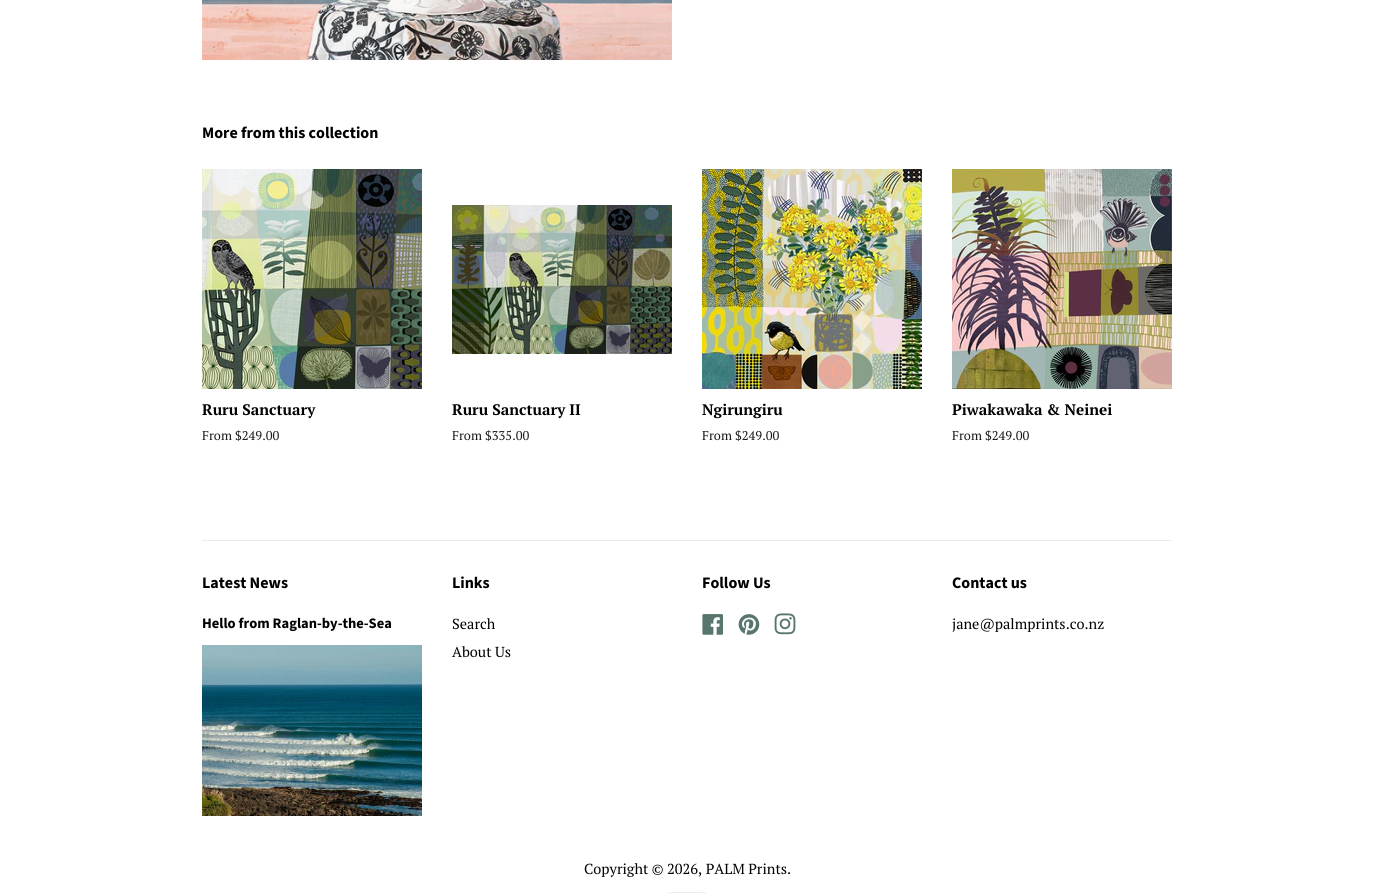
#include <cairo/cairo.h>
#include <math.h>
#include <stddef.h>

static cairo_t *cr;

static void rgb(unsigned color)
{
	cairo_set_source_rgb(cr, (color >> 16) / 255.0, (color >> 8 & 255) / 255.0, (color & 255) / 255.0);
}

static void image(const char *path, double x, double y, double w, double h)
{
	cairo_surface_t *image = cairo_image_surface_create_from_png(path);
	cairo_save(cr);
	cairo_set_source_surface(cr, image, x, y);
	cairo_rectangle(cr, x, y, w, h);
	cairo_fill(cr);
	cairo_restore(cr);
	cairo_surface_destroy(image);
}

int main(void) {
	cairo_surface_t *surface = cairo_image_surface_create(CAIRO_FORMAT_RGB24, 1374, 894);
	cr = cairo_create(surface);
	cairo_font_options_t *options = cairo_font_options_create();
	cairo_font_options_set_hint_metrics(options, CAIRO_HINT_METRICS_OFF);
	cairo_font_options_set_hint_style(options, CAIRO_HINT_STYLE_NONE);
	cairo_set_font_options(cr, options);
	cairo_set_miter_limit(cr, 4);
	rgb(0xffffff);
	cairo_paint(cr);
	image("img/1.png", 202, 0, 470, 60);
	image("img/2.png", 202, 169, 220, 220);
	image("img/3.png", 452, 205, 220, 149);
	image("img/4.png", 702, 169, 220, 220);
	image("img/5.png", 952, 169, 220, 220);
	rgb(0xebebeb);
	cairo_rectangle(cr, 202, 540, 970, 1);
	cairo_fill(cr);
	image("img/6.png", 202, 645, 220, 171);
	image("img/7.png", 702, 614, 21, 21);
	image("img/8.png", 738, 614, 22, 21);
	image("img/9.png", 774, 613, 22, 22);
	image("img/10.png", 668, 892, 38, 2);
	cairo_select_font_face(cr, "Source Sans Pro", CAIRO_FONT_SLANT_NORMAL, CAIRO_FONT_WEIGHT_BOLD);
	cairo_set_font_size(cr, 16);
	rgb(0x000000);
	cairo_move_to(cr, 202, 138);
	cairo_show_text(cr, "More from this collection");
	cairo_select_font_face(cr, "PT Serif", CAIRO_FONT_SLANT_NORMAL, CAIRO_FONT_WEIGHT_BOLD);
	cairo_set_font_size(cr, 15.25);
	cairo_move_to(cr, 202, 415);
	cairo_show_text(cr, "Ruru Sanctuary");
	cairo_select_font_face(cr, "PT Serif", CAIRO_FONT_SLANT_NORMAL, CAIRO_FONT_WEIGHT_NORMAL);
	cairo_set_font_size(cr, 12.75);
	rgb(0x1a1a1a);
	cairo_move_to(cr, 202, 440);
	cairo_show_text(cr, "From $249.00");
	cairo_select_font_face(cr, "PT Serif", CAIRO_FONT_SLANT_NORMAL, CAIRO_FONT_WEIGHT_BOLD);
	cairo_set_font_size(cr, 15.25);
	rgb(0x000000);
	cairo_move_to(cr, 452, 415);
	cairo_show_text(cr, "Ruru Sanctuary II");
	cairo_select_font_face(cr, "PT Serif", CAIRO_FONT_SLANT_NORMAL, CAIRO_FONT_WEIGHT_NORMAL);
	cairo_set_font_size(cr, 12.75);
	rgb(0x1a1a1a);
	cairo_move_to(cr, 452, 440);
	cairo_show_text(cr, "From $335.00");
	cairo_select_font_face(cr, "PT Serif", CAIRO_FONT_SLANT_NORMAL, CAIRO_FONT_WEIGHT_BOLD);
	cairo_set_font_size(cr, 15.25);
	rgb(0x000000);
	cairo_move_to(cr, 702, 415);
	cairo_show_text(cr, "Ngirungiru");
	cairo_select_font_face(cr, "PT Serif", CAIRO_FONT_SLANT_NORMAL, CAIRO_FONT_WEIGHT_NORMAL);
	cairo_set_font_size(cr, 12.75);
	rgb(0x1a1a1a);
	cairo_move_to(cr, 702, 440);
	cairo_show_text(cr, "From $249.00");
	cairo_select_font_face(cr, "PT Serif", CAIRO_FONT_SLANT_NORMAL, CAIRO_FONT_WEIGHT_BOLD);
	cairo_set_font_size(cr, 15.25);
	rgb(0x000000);
	cairo_move_to(cr, 952, 415);
	cairo_show_text(cr, "Piwakawaka & Neinei");
	cairo_select_font_face(cr, "PT Serif", CAIRO_FONT_SLANT_NORMAL, CAIRO_FONT_WEIGHT_NORMAL);
	cairo_set_font_size(cr, 12.75);
	rgb(0x1a1a1a);
	cairo_move_to(cr, 952, 440);
	cairo_show_text(cr, "From $249.00");
	cairo_select_font_face(cr, "Source Sans Pro", CAIRO_FONT_SLANT_NORMAL, CAIRO_FONT_WEIGHT_BOLD);
	cairo_set_font_size(cr, 16);
	rgb(0x000000);
	cairo_move_to(cr, 202, 588);
	cairo_show_text(cr, "Latest News");
	cairo_set_font_size(cr, 14.5);
	cairo_move_to(cr, 202, 628);
	cairo_show_text(cr, "Hello from Raglan-by-the-Sea");
	cairo_set_font_size(cr, 16);
	cairo_move_to(cr, 452, 588);
	cairo_show_text(cr, "Links");
	cairo_select_font_face(cr, "PT Serif", CAIRO_FONT_SLANT_NORMAL, CAIRO_FONT_WEIGHT_NORMAL);
	cairo_set_font_size(cr, 14.5);
	cairo_move_to(cr, 452, 629);
	cairo_show_text(cr, "Search");
	cairo_move_to(cr, 452, 657);
	cairo_show_text(cr, "About Us");
	cairo_select_font_face(cr, "Source Sans Pro", CAIRO_FONT_SLANT_NORMAL, CAIRO_FONT_WEIGHT_BOLD);
	cairo_set_font_size(cr, 16);
	cairo_move_to(cr, 702, 588);
	cairo_show_text(cr, "Follow Us");
	cairo_move_to(cr, 952, 588);
	cairo_show_text(cr, "Contact us");
	cairo_select_font_face(cr, "PT Serif", CAIRO_FONT_SLANT_NORMAL, CAIRO_FONT_WEIGHT_NORMAL);
	cairo_set_font_size(cr, 14.5);
	cairo_move_to(cr, 952, 629);
	cairo_show_text(cr, "jane@palmprints.co.nz");
	cairo_move_to(cr, 584, 874);
	cairo_show_text(cr, "Copyright © 2026, PALM Prints.");
	cairo_surface_write_to_png(surface, "page.png");
	cairo_font_options_destroy(options);
	cairo_destroy(cr);
	cairo_surface_destroy(surface);
	return 0;
}
